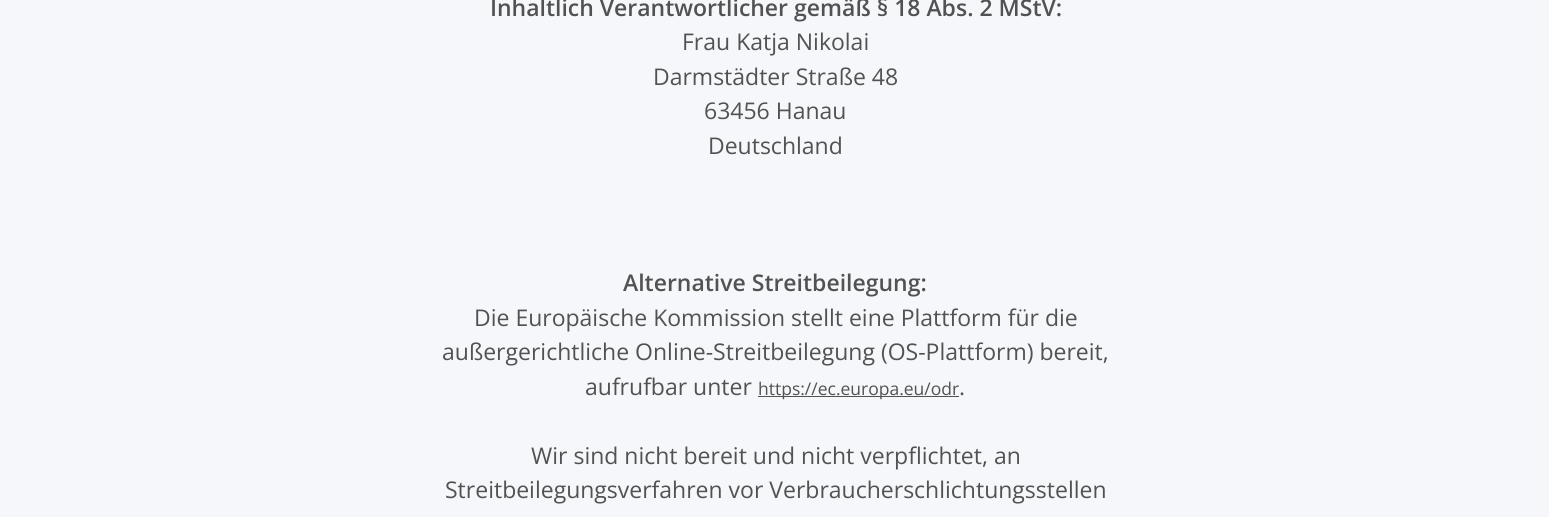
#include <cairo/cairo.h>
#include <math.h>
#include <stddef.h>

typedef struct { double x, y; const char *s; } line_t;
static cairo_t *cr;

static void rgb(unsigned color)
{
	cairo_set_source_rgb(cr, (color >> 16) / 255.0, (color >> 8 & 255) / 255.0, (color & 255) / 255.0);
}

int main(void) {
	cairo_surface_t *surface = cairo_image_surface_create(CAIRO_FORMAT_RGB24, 1549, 517);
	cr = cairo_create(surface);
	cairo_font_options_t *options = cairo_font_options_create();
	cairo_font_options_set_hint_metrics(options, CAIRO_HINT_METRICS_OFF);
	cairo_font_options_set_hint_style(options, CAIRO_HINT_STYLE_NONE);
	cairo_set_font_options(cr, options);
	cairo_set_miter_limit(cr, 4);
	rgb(0xf5f7fa);
	cairo_paint(cr);
	rgb(0x525252);
	cairo_rectangle(cr, 758, 396, 201, 1);
	cairo_fill(cr);
	cairo_select_font_face(cr, "Open Sans SemiBold", CAIRO_FONT_SLANT_NORMAL, CAIRO_FONT_WEIGHT_NORMAL);
	cairo_set_font_size(cr, 23);
	cairo_move_to(cr, 490, 16);
	cairo_show_text(cr, "Inhaltlich Verantwortlicher gemäß § 18 Abs. 2 MStV:");
	cairo_select_font_face(cr, "Open Sans", CAIRO_FONT_SLANT_NORMAL, CAIRO_FONT_WEIGHT_NORMAL);
	{
		static const line_t items[] = {
			{682, 50, "Frau Katja Nikolai"},
			{653, 85, "Darmstädter Straße 48"},
			{704, 119, "63456 Hanau"},
			{708, 154, "Deutschland"},
		};
		for (size_t i = 0; i < sizeof items / sizeof *items; i++) {
			cairo_move_to(cr, items[i].x, items[i].y);
			cairo_show_text(cr, items[i].s);
		}
	}
	cairo_select_font_face(cr, "Open Sans SemiBold", CAIRO_FONT_SLANT_NORMAL, CAIRO_FONT_WEIGHT_NORMAL);
	cairo_move_to(cr, 623, 291);
	cairo_show_text(cr, "Alternative Streitbeilegung:");
	cairo_select_font_face(cr, "Open Sans", CAIRO_FONT_SLANT_NORMAL, CAIRO_FONT_WEIGHT_NORMAL);
	{
		static const line_t items[] = {
			{474, 326, "Die Europäische Kommission stellt eine Plattform für die"},
			{442, 360, "außergerichtliche Online-Streitbeilegung (OS-Plattform) bereit,"},
			{585, 395, "aufrufbar unter"},
		};
		for (size_t i = 0; i < sizeof items / sizeof *items; i++) {
			cairo_move_to(cr, items[i].x, items[i].y);
			cairo_show_text(cr, items[i].s);
		}
	}
	cairo_set_font_size(cr, 17.5);
	cairo_move_to(cr, 758, 395);
	cairo_show_text(cr, "https://ec.europa.eu/odr");
	cairo_set_font_size(cr, 23);
	{
		static const line_t items[] = {
			{959, 395, "."},
			{531, 464, "Wir sind nicht bereit und nicht verpflichtet, an"},
			{445, 498, "Streitbeilegungsverfahren vor Verbraucherschlichtungsstellen"},
		};
		for (size_t i = 0; i < sizeof items / sizeof *items; i++) {
			cairo_move_to(cr, items[i].x, items[i].y);
			cairo_show_text(cr, items[i].s);
		}
	}
	cairo_surface_write_to_png(surface, "page.png");
	cairo_font_options_destroy(options);
	cairo_destroy(cr);
	cairo_surface_destroy(surface);
	return 0;
}
